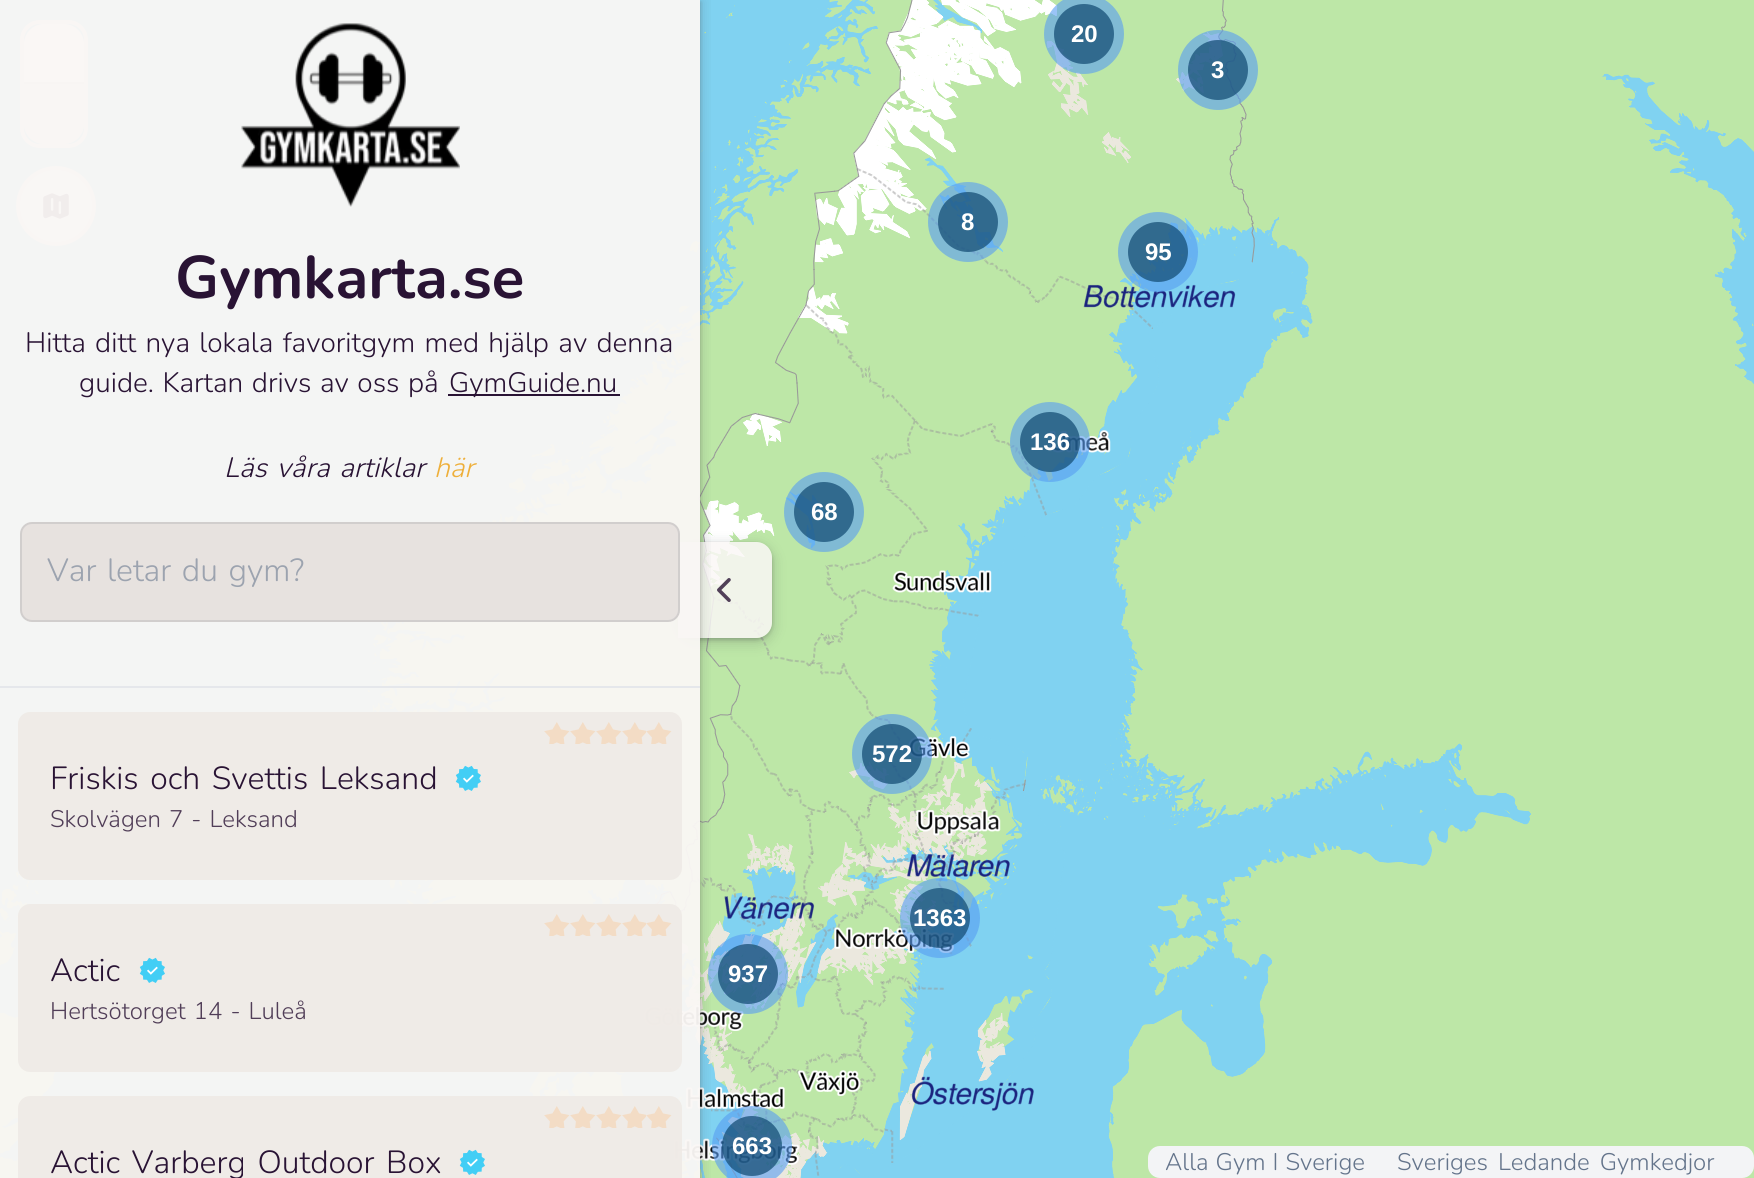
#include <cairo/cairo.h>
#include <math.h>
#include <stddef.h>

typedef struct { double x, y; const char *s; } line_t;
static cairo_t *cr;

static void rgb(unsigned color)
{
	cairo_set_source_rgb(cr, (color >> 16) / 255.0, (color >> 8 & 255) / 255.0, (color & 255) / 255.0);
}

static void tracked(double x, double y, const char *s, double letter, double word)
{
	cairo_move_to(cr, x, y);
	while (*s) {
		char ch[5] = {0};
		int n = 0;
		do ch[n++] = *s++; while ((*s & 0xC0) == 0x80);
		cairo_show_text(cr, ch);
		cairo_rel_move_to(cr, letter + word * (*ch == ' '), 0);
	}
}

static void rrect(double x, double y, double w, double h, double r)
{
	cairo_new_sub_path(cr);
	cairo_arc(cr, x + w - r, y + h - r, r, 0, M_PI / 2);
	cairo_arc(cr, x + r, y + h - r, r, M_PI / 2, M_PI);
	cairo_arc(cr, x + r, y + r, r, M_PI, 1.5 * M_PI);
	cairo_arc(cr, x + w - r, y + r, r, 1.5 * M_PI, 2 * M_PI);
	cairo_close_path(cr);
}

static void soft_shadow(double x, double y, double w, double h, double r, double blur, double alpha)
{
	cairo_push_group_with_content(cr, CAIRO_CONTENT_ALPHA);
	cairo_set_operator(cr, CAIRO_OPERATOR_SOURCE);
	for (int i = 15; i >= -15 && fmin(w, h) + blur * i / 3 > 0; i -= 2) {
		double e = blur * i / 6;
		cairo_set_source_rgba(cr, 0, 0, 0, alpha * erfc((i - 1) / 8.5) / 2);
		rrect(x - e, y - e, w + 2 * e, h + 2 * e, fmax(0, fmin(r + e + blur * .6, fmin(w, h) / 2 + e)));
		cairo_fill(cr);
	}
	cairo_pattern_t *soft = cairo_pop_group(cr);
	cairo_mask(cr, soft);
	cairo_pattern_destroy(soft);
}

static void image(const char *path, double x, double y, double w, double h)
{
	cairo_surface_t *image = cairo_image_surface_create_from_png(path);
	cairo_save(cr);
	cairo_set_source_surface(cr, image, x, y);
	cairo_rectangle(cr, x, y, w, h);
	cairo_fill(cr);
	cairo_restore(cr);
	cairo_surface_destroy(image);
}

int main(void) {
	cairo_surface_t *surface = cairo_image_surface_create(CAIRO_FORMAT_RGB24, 1754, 1178);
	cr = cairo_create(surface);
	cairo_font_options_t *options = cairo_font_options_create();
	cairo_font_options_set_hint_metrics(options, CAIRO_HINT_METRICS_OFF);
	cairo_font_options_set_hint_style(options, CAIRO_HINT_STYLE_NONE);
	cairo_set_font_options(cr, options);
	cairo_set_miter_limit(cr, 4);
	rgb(0xffffff);
	cairo_paint(cr);
	image("img/21.png", 154, 150, 512, 512);
	image("img/22.png", 666, 150, 512, 512);
	image("img/26.png", 154, 662, 512, 512);
	image("img/27.png", 666, 662, 512, 512);
	cairo_set_source_rgba(cr, 0.341, 0.612, 0.945, 0.6);
	cairo_arc(cr, 824, 512, 40, 0, 2 * M_PI);
	cairo_fill(cr);
	cairo_set_source_rgba(cr, 0.075, 0.298, 0.455, 0.72);
	cairo_arc(cr, 824, 512, 30, 0, 2 * M_PI);
	cairo_fill(cr);
	cairo_save(cr);
	cairo_set_fill_rule(cr, CAIRO_FILL_RULE_EVEN_ODD);
	cairo_new_path(cr);
	cairo_move_to(cr, 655, 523);
	cairo_line_to(cr, 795, 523);
	cairo_line_to(cr, 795, 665);
	cairo_line_to(cr, 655, 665);
	cairo_close_path(cr);
	cairo_move_to(cr, 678, 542);
	cairo_line_to(cr, 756, 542);
	cairo_curve_to(cr, 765, 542, 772, 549, 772, 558);
	cairo_line_to(cr, 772, 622);
	cairo_curve_to(cr, 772, 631, 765, 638, 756, 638);
	cairo_line_to(cr, 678, 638);
	cairo_close_path(cr);
	cairo_clip(cr);
	rgb(0x3c4043);
	soft_shadow(674, 542, 102, 104, 20, 6, 0.15);
	cairo_restore(cr);
	cairo_save(cr);
	cairo_set_fill_rule(cr, CAIRO_FILL_RULE_EVEN_ODD);
	cairo_new_path(cr);
	cairo_move_to(cr, 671, 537);
	cairo_line_to(cr, 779, 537);
	cairo_line_to(cr, 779, 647);
	cairo_line_to(cr, 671, 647);
	cairo_close_path(cr);
	cairo_move_to(cr, 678, 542);
	cairo_line_to(cr, 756, 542);
	cairo_curve_to(cr, 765, 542, 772, 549, 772, 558);
	cairo_line_to(cr, 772, 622);
	cairo_curve_to(cr, 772, 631, 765, 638, 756, 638);
	cairo_line_to(cr, 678, 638);
	cairo_close_path(cr);
	cairo_clip(cr);
	rgb(0x3c4043);
	soft_shadow(678, 544, 94, 96, 16, 2, 0.3);
	cairo_restore(cr);
	cairo_set_source_rgba(cr, 0.98, 0.969, 0.961, 0.85);
	cairo_new_path(cr);
	cairo_move_to(cr, 678, 542);
	cairo_line_to(cr, 756, 542);
	cairo_curve_to(cr, 765, 542, 772, 549, 772, 558);
	cairo_line_to(cr, 772, 622);
	cairo_curve_to(cr, 772, 631, 765, 638, 756, 638);
	cairo_line_to(cr, 678, 638);
	cairo_close_path(cr);
	cairo_fill(cr);
	image("img/16.png", 717, 578, 14, 24);
	rgb(0x80d2f1);
	cairo_rectangle(cr, 0, 0, 154, 662);
	cairo_fill(cr);
	rgb(0xf2fbfe);
	cairo_arc(cr, 56, 206, 38, 0, 2 * M_PI);
	cairo_fill_preserve(cr);
	rgb(0xe2eaed);
	cairo_set_line_width(cr, 4);
	cairo_stroke(cr);
	image("img/17.png", 43, 193, 26, 26);
	rrect(22, 22, 64, 124, 18);
	rgb(0xededed);
	cairo_stroke(cr);
	rgb(0xffffff);
	cairo_new_path(cr);
	cairo_move_to(cr, 44, 24);
	cairo_line_to(cr, 64, 24);
	cairo_curve_to(cr, 75, 24, 84, 33, 84, 44);
	cairo_line_to(cr, 84, 82);
	cairo_line_to(cr, 24, 82);
	cairo_line_to(cr, 24, 44);
	cairo_curve_to(cr, 24, 33, 33, 24, 44, 24);
	cairo_close_path(cr);
	cairo_fill(cr);
	rgb(0xcccccc);
	cairo_rectangle(cr, 24, 82, 60, 2);
	cairo_fill(cr);
	rgb(0xf4f4f4);
	cairo_new_path(cr);
	cairo_move_to(cr, 24, 84);
	cairo_line_to(cr, 84, 84);
	cairo_line_to(cr, 84, 124);
	cairo_curve_to(cr, 84, 135, 75, 144, 64, 144);
	cairo_line_to(cr, 44, 144);
	cairo_curve_to(cr, 33, 144, 24, 135, 24, 124);
	cairo_close_path(cr);
	cairo_fill(cr);
	rgb(0x80d2f1);
	cairo_rectangle(cr, 154, 0, 512, 150);
	cairo_fill(cr);
	image("img/18.png", 666, 0, 512, 150);
	image("img/25.png", 0, 662, 154, 512);
	image("img/29.png", 0, 1174, 154, 4);
	image("img/30.png", 154, 1174, 512, 4);
	image("img/31.png", 666, 1174, 494, 4);
	cairo_set_source_rgba(cr, 0.341, 0.612, 0.945, 0.6);
	cairo_arc(cr, 748, 974, 40, 0, 2 * M_PI);
	cairo_fill(cr);
	cairo_set_source_rgba(cr, 0.075, 0.298, 0.455, 0.72);
	cairo_arc(cr, 748, 974, 30, 0, 2 * M_PI);
	cairo_fill(cr);
	cairo_set_source_rgba(cr, 0.341, 0.612, 0.945, 0.6);
	cairo_arc(cr, 752, 1146, 40, 0, 2 * M_PI);
	cairo_fill(cr);
	cairo_set_source_rgba(cr, 0.075, 0.298, 0.455, 0.72);
	cairo_arc(cr, 752, 1146, 30, 0, 2 * M_PI);
	cairo_fill(cr);
	cairo_save(cr);
	cairo_rectangle(cr, 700, 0, 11, 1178);
	cairo_clip(cr);
	rgb(0x3c4043);
	soft_shadow(-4, 0, 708, 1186, 0, 6, 0.15);
	cairo_restore(cr);
	cairo_save(cr);
	cairo_rectangle(cr, 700, 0, 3, 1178);
	cairo_clip(cr);
	rgb(0x3c4043);
	soft_shadow(0, 2, 700, 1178, 0, 2, 0.3);
	cairo_restore(cr);
	cairo_set_source_rgba(cr, 0.98, 0.969, 0.961, 0.95);
	cairo_rectangle(cr, 0, 0, 700, 1178);
	cairo_fill(cr);
	image("img/1.png", 241, 23, 219, 184);
	rgb(0x291334);
	cairo_rectangle(cr, 448, 394, 172, 2);
	cairo_fill(cr);
	rgb(0xe7e2df);
	rrect(20, 522, 660, 100, 12);
	cairo_fill(cr);
	rrect(21, 523, 658, 98, 11);
	cairo_set_source_rgba(cr, 0.059, 0.09, 0.165, 0.1);
	cairo_set_line_width(cr, 2);
	cairo_stroke(cr);
	rgb(0xe5e7eb);
	cairo_rectangle(cr, 0, 686, 700, 2);
	cairo_fill(cr);
	cairo_set_source_rgba(cr, 0.937, 0.918, 0.902, 0.9);
	rrect(18, 712, 664, 168, 12);
	cairo_fill(cr);
	image("img/2.png", 544, 722, 26, 22);
	image("img/2.png", 570, 722, 26, 22);
	image("img/2.png", 596, 722, 26, 22);
	image("img/3.png", 622, 722, 24, 22);
	image("img/2.png", 646, 722, 26, 22);
	image("img/4.png", 455, 765, 26, 26);
	rrect(18, 904, 664, 168, 12);
	cairo_fill(cr);
	image("img/5.png", 544, 914, 26, 22);
	image("img/6.png", 570, 914, 26, 22);
	image("img/7.png", 596, 914, 26, 22);
	image("img/8.png", 622, 914, 24, 22);
	image("img/9.png", 646, 914, 26, 22);
	image("img/10.png", 139, 957, 26, 26);
	cairo_new_path(cr);
	cairo_move_to(cr, 30, 1096);
	cairo_line_to(cr, 670, 1096);
	cairo_curve_to(cr, 676.5, 1096, 682, 1101.5, 682, 1108);
	cairo_line_to(cr, 682, 1178);
	cairo_line_to(cr, 18, 1178);
	cairo_line_to(cr, 18, 1108);
	cairo_curve_to(cr, 18, 1101.5, 23.5, 1096, 30, 1096);
	cairo_close_path(cr);
	cairo_fill(cr);
	image("img/11.png", 544, 1106, 26, 22);
	image("img/12.png", 570, 1106, 26, 22);
	image("img/13.png", 596, 1106, 26, 22);
	image("img/14.png", 622, 1106, 24, 22);
	image("img/15.png", 646, 1106, 26, 22);
	image("img/10.png", 459, 1149, 26, 26);
	image("img/19.png", 1178, 0, 512, 150);
	image("img/20.png", 1690, 0, 64, 150);
	image("img/23.png", 1178, 150, 512, 512);
	image("img/24.png", 1690, 150, 64, 512);
	image("img/28.png", 1178, 662, 512, 484);
	rgb(0xbde7a7);
	cairo_rectangle(cr, 1690, 662, 64, 512);
	cairo_fill(cr);
	cairo_rectangle(cr, 1742, 1174, 12, 4);
	cairo_fill(cr);
	cairo_set_source_rgba(cr, 0.341, 0.612, 0.945, 0.6);
	cairo_arc(cr, 1084, 34, 40, 0, 2 * M_PI);
	cairo_fill(cr);
	cairo_set_source_rgba(cr, 0.075, 0.298, 0.455, 0.72);
	cairo_arc(cr, 1084, 34, 30, 0, 2 * M_PI);
	cairo_fill(cr);
	cairo_set_source_rgba(cr, 0.341, 0.612, 0.945, 0.6);
	cairo_arc(cr, 1218, 70, 40, 0, 2 * M_PI);
	cairo_fill(cr);
	cairo_set_source_rgba(cr, 0.075, 0.298, 0.455, 0.72);
	cairo_arc(cr, 1218, 70, 30, 0, 2 * M_PI);
	cairo_fill(cr);
	cairo_set_source_rgba(cr, 0.341, 0.612, 0.945, 0.6);
	cairo_arc(cr, 968, 222, 40, 0, 2 * M_PI);
	cairo_fill(cr);
	cairo_set_source_rgba(cr, 0.075, 0.298, 0.455, 0.72);
	cairo_arc(cr, 968, 222, 30, 0, 2 * M_PI);
	cairo_fill(cr);
	cairo_set_source_rgba(cr, 0.341, 0.612, 0.945, 0.6);
	cairo_arc(cr, 1158, 252, 40, 0, 2 * M_PI);
	cairo_fill(cr);
	cairo_set_source_rgba(cr, 0.075, 0.298, 0.455, 0.72);
	cairo_arc(cr, 1158, 252, 30, 0, 2 * M_PI);
	cairo_fill(cr);
	cairo_set_source_rgba(cr, 0.341, 0.612, 0.945, 0.6);
	cairo_arc(cr, 1050, 442, 40, 0, 2 * M_PI);
	cairo_fill(cr);
	cairo_set_source_rgba(cr, 0.075, 0.298, 0.455, 0.72);
	cairo_arc(cr, 1050, 442, 30, 0, 2 * M_PI);
	cairo_fill(cr);
	cairo_set_source_rgba(cr, 0.341, 0.612, 0.945, 0.6);
	cairo_arc(cr, 892, 754, 40, 0, 2 * M_PI);
	cairo_fill(cr);
	cairo_set_source_rgba(cr, 0.075, 0.298, 0.455, 0.72);
	cairo_arc(cr, 892, 754, 30, 0, 2 * M_PI);
	cairo_fill(cr);
	cairo_set_source_rgba(cr, 0.341, 0.612, 0.945, 0.6);
	cairo_arc(cr, 940, 918, 40, 0, 2 * M_PI);
	cairo_fill(cr);
	cairo_set_source_rgba(cr, 0.075, 0.298, 0.455, 0.72);
	cairo_arc(cr, 940, 918, 30, 0, 2 * M_PI);
	cairo_fill(cr);
	rgb(0xf3f4f6);
	rrect(1148, 1146, 606, 32, 12);
	cairo_fill(cr);
	cairo_select_font_face(cr, "Nunito", CAIRO_FONT_SLANT_NORMAL, CAIRO_FONT_WEIGHT_BOLD);
	cairo_set_font_size(cr, 60);
	rgb(0x291334);
	cairo_move_to(cr, 175, 298);
	cairo_show_text(cr, "Gymkarta.se");
	cairo_select_font_face(cr, "Nunito Light", CAIRO_FONT_SLANT_NORMAL, CAIRO_FONT_WEIGHT_NORMAL);
	cairo_set_font_size(cr, 28);
	tracked(25, 352, "Hitta ditt nya lokala favoritgym med hjälp av denna", 0, 2.25);
	tracked(79, 392, "guide. Kartan drivs av oss på", 0, 1.5);
	cairo_move_to(cr, 449, 392);
	cairo_show_text(cr, "GymGuide.nu");
	cairo_select_font_face(cr, "Nunito Light", CAIRO_FONT_SLANT_ITALIC, CAIRO_FONT_WEIGHT_NORMAL);
	tracked(224, 477, "Läs våra artiklar", 0, 2.5);
	rgb(0xeeaf3a);
	cairo_move_to(cr, 434, 477);
	cairo_show_text(cr, "här");
	cairo_select_font_face(cr, "Nunito Light", CAIRO_FONT_SLANT_NORMAL, CAIRO_FONT_WEIGHT_NORMAL);
	cairo_set_font_size(cr, 32);
	rgb(0x9ca3af);
	tracked(47, 581, "Var letar du gym?", 0, 2.5);
	rgb(0x291334);
	tracked(50, 789, "Friskis och Svettis Leksand", 0, 3.5);
	cairo_set_font_size(cr, 24);
	rgb(0x513e58);
	tracked(50, 827, "Skolvägen 7 - Leksand", 0, 2);
	cairo_set_font_size(cr, 32);
	rgb(0x291334);
	cairo_move_to(cr, 50, 981);
	cairo_show_text(cr, "Actic");
	cairo_set_font_size(cr, 24);
	rgb(0x513e58);
	tracked(50, 1019, "Hertsötorget 14 - Luleå", 0, 2);
	cairo_set_font_size(cr, 32);
	rgb(0x291334);
	tracked(50, 1173, "Actic Varberg Outdoor Box", 0, 3.5);
	cairo_select_font_face(cr, "Liberation Sans", CAIRO_FONT_SLANT_NORMAL, CAIRO_FONT_WEIGHT_BOLD);
	cairo_set_font_size(cr, 24);
	rgb(0xffffff);
	{
		static const line_t items[] = {
			{1071, 42, "20"},
			{1211, 78, "3"},
			{961, 230, "8"},
			{1145, 260, "95"},
			{1030, 450, "136"},
			{811, 520, "68"},
			{872, 762, "572"},
			{913, 926, "1363"},
			{728, 982, "937"},
			{732, 1154, "663"},
		};
		for (size_t i = 0; i < sizeof items / sizeof *items; i++) {
			cairo_move_to(cr, items[i].x, items[i].y);
			cairo_show_text(cr, items[i].s);
		}
	}
	cairo_select_font_face(cr, "Nunito Light", CAIRO_FONT_SLANT_NORMAL, CAIRO_FONT_WEIGHT_NORMAL);
	rgb(0x64748b);
	tracked(1165, 1170, "Alla Gym I Sverige", 0, 1);
	tracked(1397, 1170, "Sveriges Ledande Gymkedjor", 0, 4);
	cairo_surface_write_to_png(surface, "page.png");
	cairo_font_options_destroy(options);
	cairo_destroy(cr);
	cairo_surface_destroy(surface);
	return 0;
}
